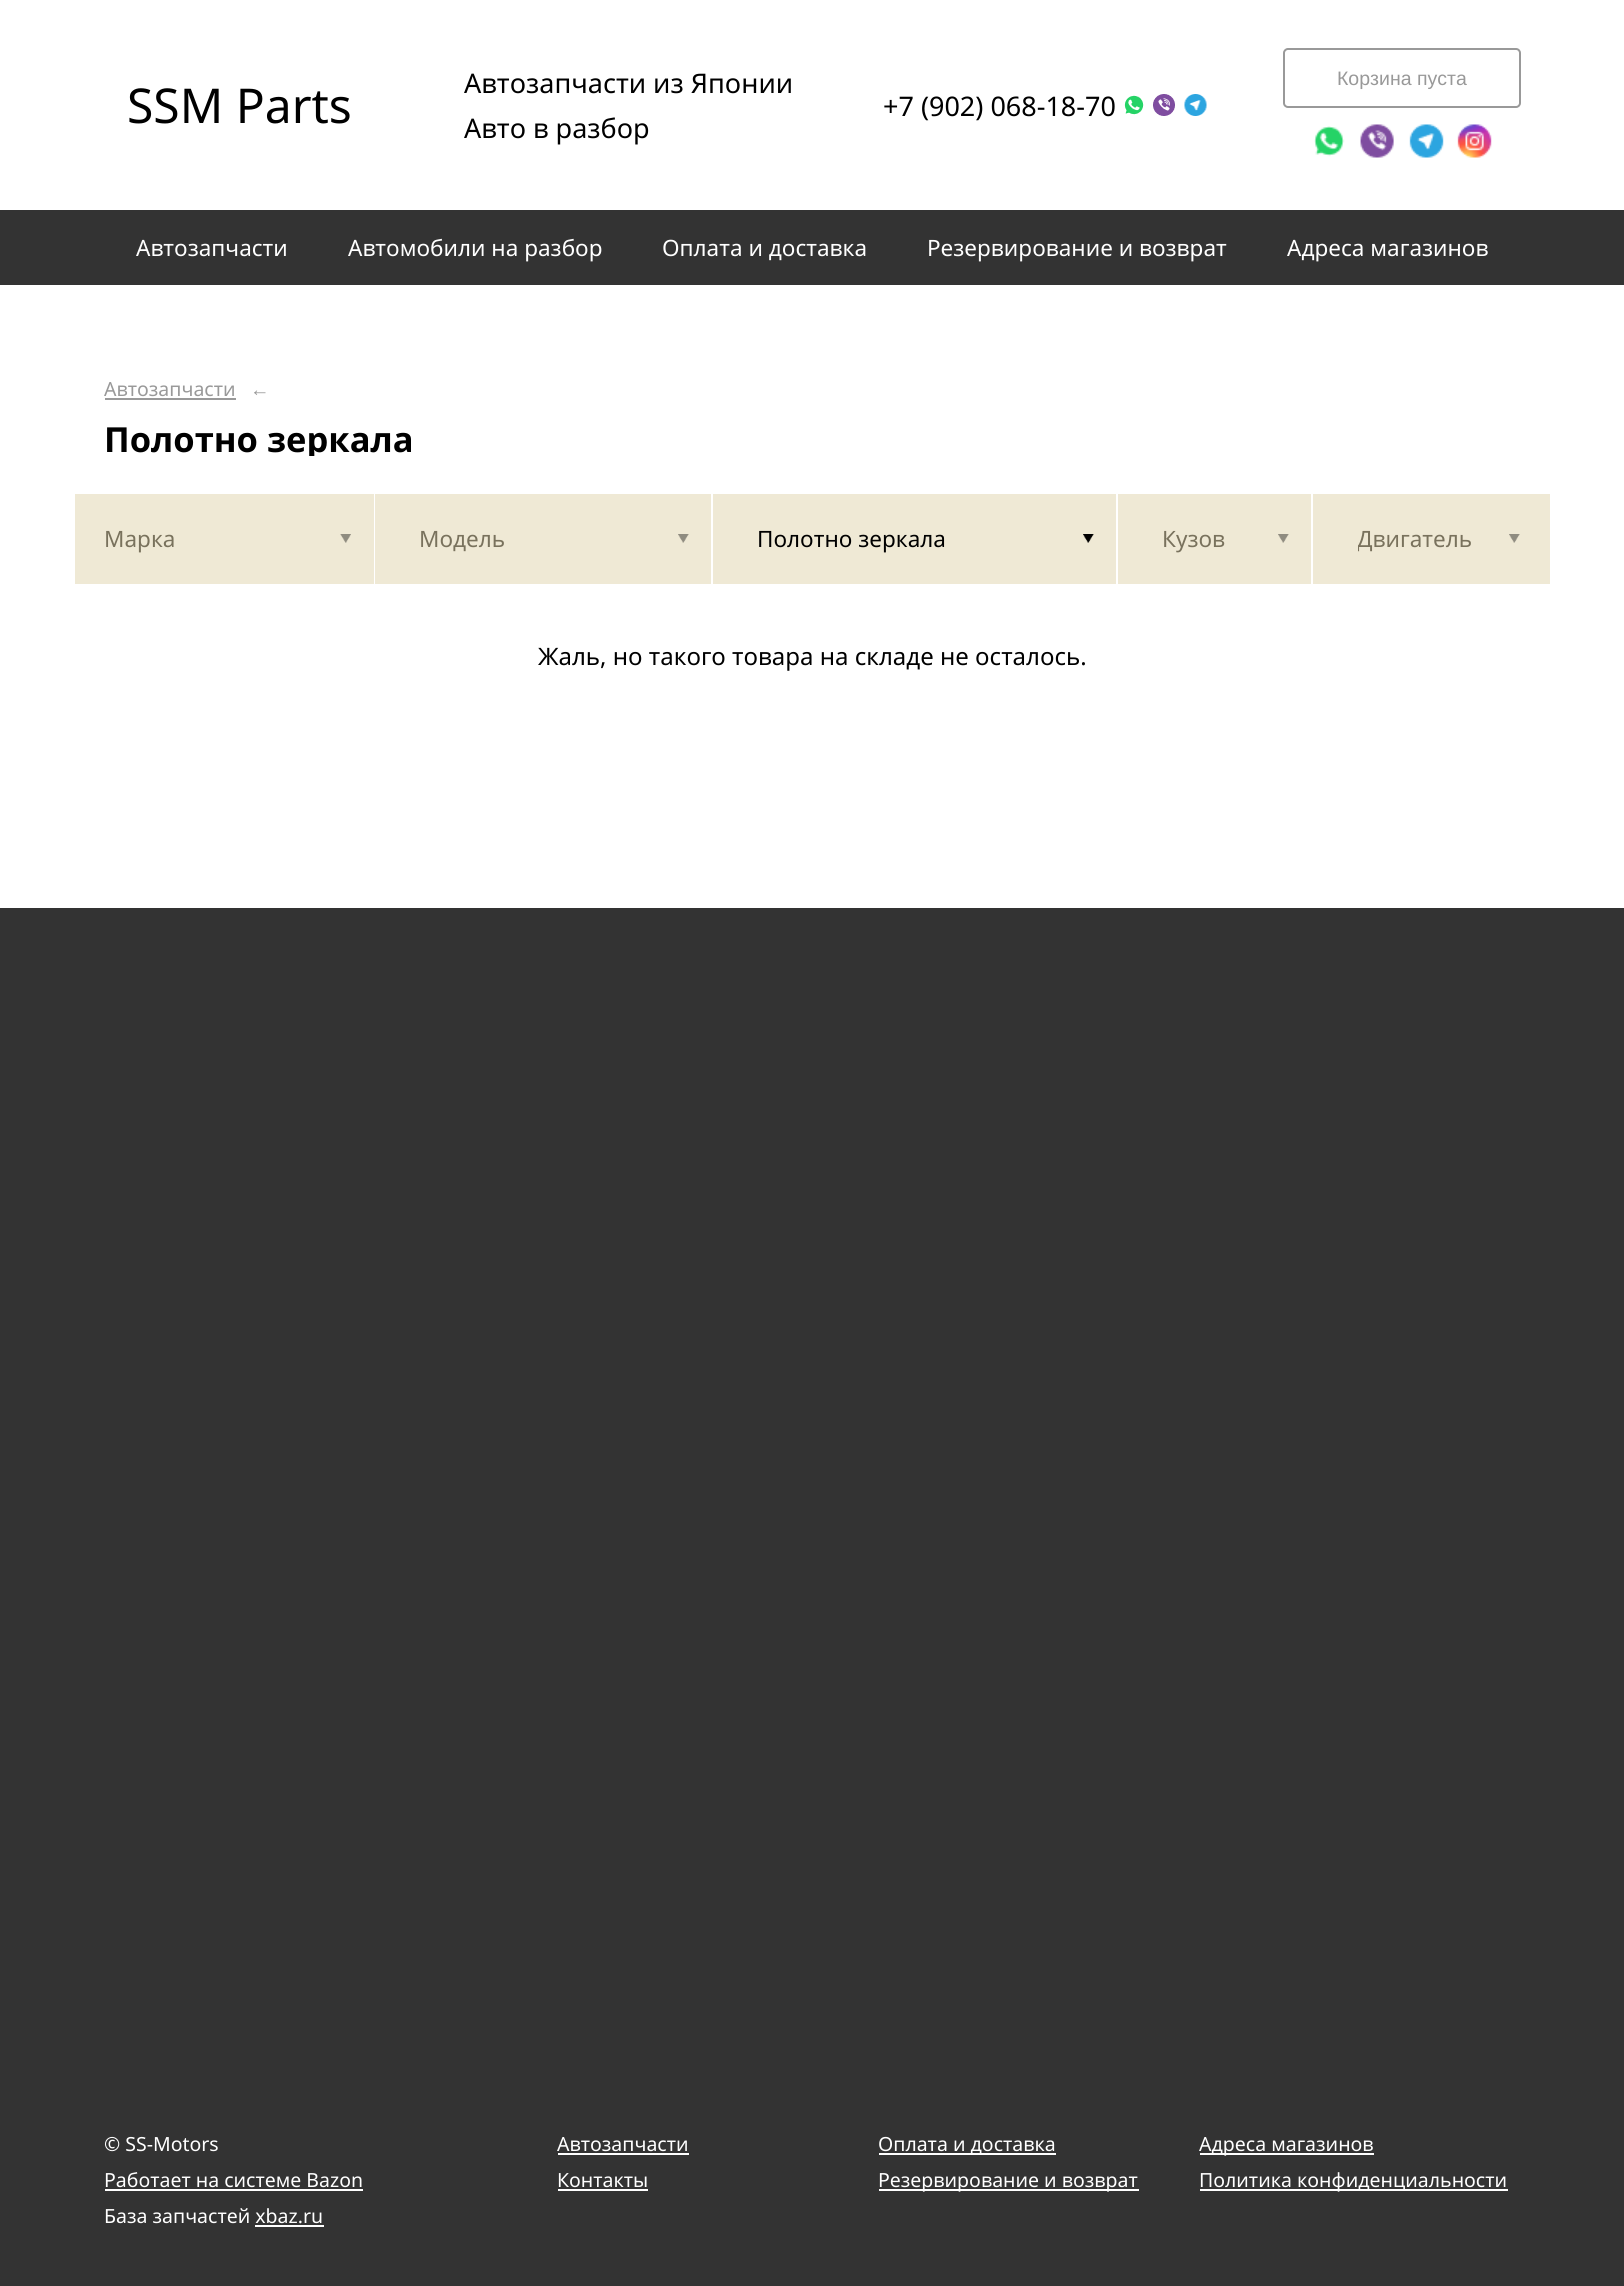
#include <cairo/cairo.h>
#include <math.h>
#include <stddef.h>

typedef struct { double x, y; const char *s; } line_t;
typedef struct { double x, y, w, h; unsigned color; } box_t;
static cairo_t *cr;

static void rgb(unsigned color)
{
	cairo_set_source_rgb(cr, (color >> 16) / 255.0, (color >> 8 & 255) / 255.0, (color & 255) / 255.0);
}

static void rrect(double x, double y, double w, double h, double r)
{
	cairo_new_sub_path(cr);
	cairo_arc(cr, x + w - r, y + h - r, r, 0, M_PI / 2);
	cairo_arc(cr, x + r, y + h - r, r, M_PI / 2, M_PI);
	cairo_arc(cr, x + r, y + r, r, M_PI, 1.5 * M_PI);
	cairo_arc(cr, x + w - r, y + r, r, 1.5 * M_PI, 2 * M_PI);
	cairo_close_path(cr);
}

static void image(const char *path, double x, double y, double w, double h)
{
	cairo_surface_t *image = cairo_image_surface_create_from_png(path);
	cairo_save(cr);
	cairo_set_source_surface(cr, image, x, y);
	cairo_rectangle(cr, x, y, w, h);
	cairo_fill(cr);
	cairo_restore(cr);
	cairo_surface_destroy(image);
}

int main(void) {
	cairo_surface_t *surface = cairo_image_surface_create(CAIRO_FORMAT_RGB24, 1624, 2286);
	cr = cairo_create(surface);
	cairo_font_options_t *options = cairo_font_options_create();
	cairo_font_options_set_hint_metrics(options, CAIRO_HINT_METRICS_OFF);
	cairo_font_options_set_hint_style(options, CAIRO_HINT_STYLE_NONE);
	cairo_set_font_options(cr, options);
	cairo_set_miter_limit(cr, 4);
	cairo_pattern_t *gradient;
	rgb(0x333333);
	cairo_paint(cr);
	rgb(0xffffff);
	cairo_rectangle(cr, 0, 0, 1624, 908);
	cairo_fill(cr);
	image("img/1.png", 1124, 95, 20, 20);
	image("img/2.png", 1153, 94, 22, 22);
	image("img/3.png", 1184, 94, 23, 22);
	rrect(1284, 49, 236, 58, 4);
	rgb(0x999999);
	cairo_stroke(cr);
	image("img/4.png", 1314, 126, 31, 31);
	image("img/5.png", 1360, 124, 34, 34);
	image("img/6.png", 1409, 124, 35, 34);
	image("img/7.png", 1457, 124, 35, 34);
	{
		static const box_t items[] = {
			{0, 210, 1624, 75, 0x333333},
			{105, 398, 131, 2, 0x999999},
			{75, 494, 299, 90, 0xefe9d5},
		};
		for (size_t i = 0; i < sizeof items / sizeof *items; i++) {
			rgb(items[i].color);
			cairo_rectangle(cr, items[i].x, items[i].y, items[i].w, items[i].h);
			cairo_fill(cr);
		}
	}
	image("img/8.png", 340, 534, 11, 9);
	cairo_rectangle(cr, 375, 494, 336, 90);
	cairo_fill(cr);
	image("img/9.png", 678, 534, 11, 9);
	cairo_rectangle(cr, 713, 494, 403, 90);
	cairo_fill(cr);
	image("img/10.png", 1083, 534, 11, 9);
	cairo_rectangle(cr, 1118, 494, 193, 90);
	cairo_fill(cr);
	image("img/11.png", 1278, 534, 11, 9);
	cairo_rectangle(cr, 1313, 494, 237, 90);
	cairo_fill(cr);
	image("img/12.png", 1509, 534, 11, 9);
	{
		static const box_t items[] = {
			{105, 2189, 258, 2, 0xffffff},
			{255, 2225, 69, 2, 0xffffff},
			{558, 2153, 131, 2, 0xffffff},
			{558, 2189, 90, 2, 0xffffff},
			{879, 2153, 177, 2, 0xffffff},
			{879, 2189, 260, 2, 0xffffff},
			{1200, 2153, 174, 2, 0xffffff},
			{1200, 2189, 308, 2, 0xffffff},
		};
		for (size_t i = 0; i < sizeof items / sizeof *items; i++) {
			rgb(items[i].color);
			cairo_rectangle(cr, items[i].x, items[i].y, items[i].w, items[i].h);
			cairo_fill(cr);
		}
	}
	cairo_select_font_face(cr, "Noto Sans", CAIRO_FONT_SLANT_NORMAL, CAIRO_FONT_WEIGHT_NORMAL);
	cairo_set_font_size(cr, 48);
	rgb(0x000000);
	cairo_move_to(cr, 127, 123);
	cairo_show_text(cr, "SSM Parts");
	cairo_set_font_size(cr, 27);
	{
		static const line_t items[] = {
			{464, 93, "Автозапчасти из Японии"},
			{464, 138, "Авто в разбор"},
			{883, 116, "+7 (902) 068-18-70"},
		};
		for (size_t i = 0; i < sizeof items / sizeof *items; i++) {
			cairo_move_to(cr, items[i].x, items[i].y);
			cairo_show_text(cr, items[i].s);
		}
	}
	cairo_select_font_face(cr, "Liberation Sans", CAIRO_FONT_SLANT_NORMAL, CAIRO_FONT_WEIGHT_NORMAL);
	cairo_set_font_size(cr, 19.5);
	rgb(0x999999);
	cairo_move_to(cr, 1337, 85);
	cairo_show_text(cr, "Корзина пуста");
	cairo_select_font_face(cr, "Noto Sans", CAIRO_FONT_SLANT_NORMAL, CAIRO_FONT_WEIGHT_NORMAL);
	cairo_set_font_size(cr, 22.5);
	rgb(0xffffff);
	{
		static const line_t items[] = {
			{136, 256, "Автозапчасти"},
			{348, 256, "Автомобили на разбор"},
			{662, 256, "Оплата и доставка"},
			{927, 256, "Резервирование и возврат"},
			{1287, 256, "Адреса магазинов"},
		};
		for (size_t i = 0; i < sizeof items / sizeof *items; i++) {
			cairo_move_to(cr, items[i].x, items[i].y);
			cairo_show_text(cr, items[i].s);
		}
	}
	cairo_set_font_size(cr, 19.5);
	rgb(0x999999);
	cairo_move_to(cr, 104, 396);
	cairo_show_text(cr, "Автозапчасти");
	cairo_move_to(cr, 250, 396);
	cairo_show_text(cr, "←");
	cairo_save(cr);
	cairo_rectangle(cr, 105, 399, 1416, 57);
	cairo_clip(cr);
	cairo_select_font_face(cr, "Noto Sans", CAIRO_FONT_SLANT_NORMAL, CAIRO_FONT_WEIGHT_BOLD);
	cairo_set_font_size(cr, 34.5);
	rgb(0x000000);
	cairo_move_to(cr, 104, 452);
	cairo_show_text(cr, "Полотно зеркала");
	cairo_restore(cr);
	cairo_set_font_size(cr, 22.5);
	rgb(0x79725d);
	cairo_move_to(cr, 104, 547);
	cairo_show_text(cr, "Марка");
	cairo_move_to(cr, 419, 547);
	cairo_show_text(cr, "Модель");
	rgb(0x000000);
	cairo_move_to(cr, 757, 547);
	cairo_show_text(cr, "Полотно зеркала");
	rgb(0x79725d);
	cairo_move_to(cr, 1162, 547);
	cairo_show_text(cr, "Кузов");
	cairo_save(cr);
	cairo_rectangle(cr, 1358, 494, 163, 90);
	cairo_clip(cr);
	cairo_move_to(cr, 1357, 547);
	cairo_show_text(cr, "Двигатель");
	cairo_restore(cr);
	gradient = cairo_pattern_create_linear(1469, 539, 1521, 539);
	cairo_pattern_add_color_stop_rgba(gradient, 0, 0.937, 0.914, 0.835, 0);
	cairo_pattern_add_color_stop_rgba(gradient, 1, 0.937, 0.914, 0.835, 1);
	cairo_set_source(cr, gradient);
	cairo_pattern_destroy(gradient);
	cairo_rectangle(cr, 1470, 543, 1, 1);
	cairo_fill(cr);
	cairo_set_font_size(cr, 24);
	rgb(0x000000);
	cairo_move_to(cr, 538, 665);
	cairo_show_text(cr, "Жаль, но такого товара на складе не осталось.");
	cairo_set_font_size(cr, 19.5);
	rgb(0xffffff);
	{
		static const line_t items[] = {
			{104, 2151, "© SS-Motors"},
			{104, 2187, "Работает на системе Bazon"},
			{104, 2223, "База запчастей xbaz.ru"},
			{557, 2151, "Автозапчасти"},
			{557, 2187, "Контакты"},
			{878, 2151, "Оплата и доставка"},
			{878, 2187, "Резервирование и возврат"},
			{1199, 2151, "Адреса магазинов"},
			{1199, 2187, "Политика конфиденциальности"},
		};
		for (size_t i = 0; i < sizeof items / sizeof *items; i++) {
			cairo_move_to(cr, items[i].x, items[i].y);
			cairo_show_text(cr, items[i].s);
		}
	}
	cairo_surface_write_to_png(surface, "page.png");
	cairo_font_options_destroy(options);
	cairo_destroy(cr);
	cairo_surface_destroy(surface);
	return 0;
}
